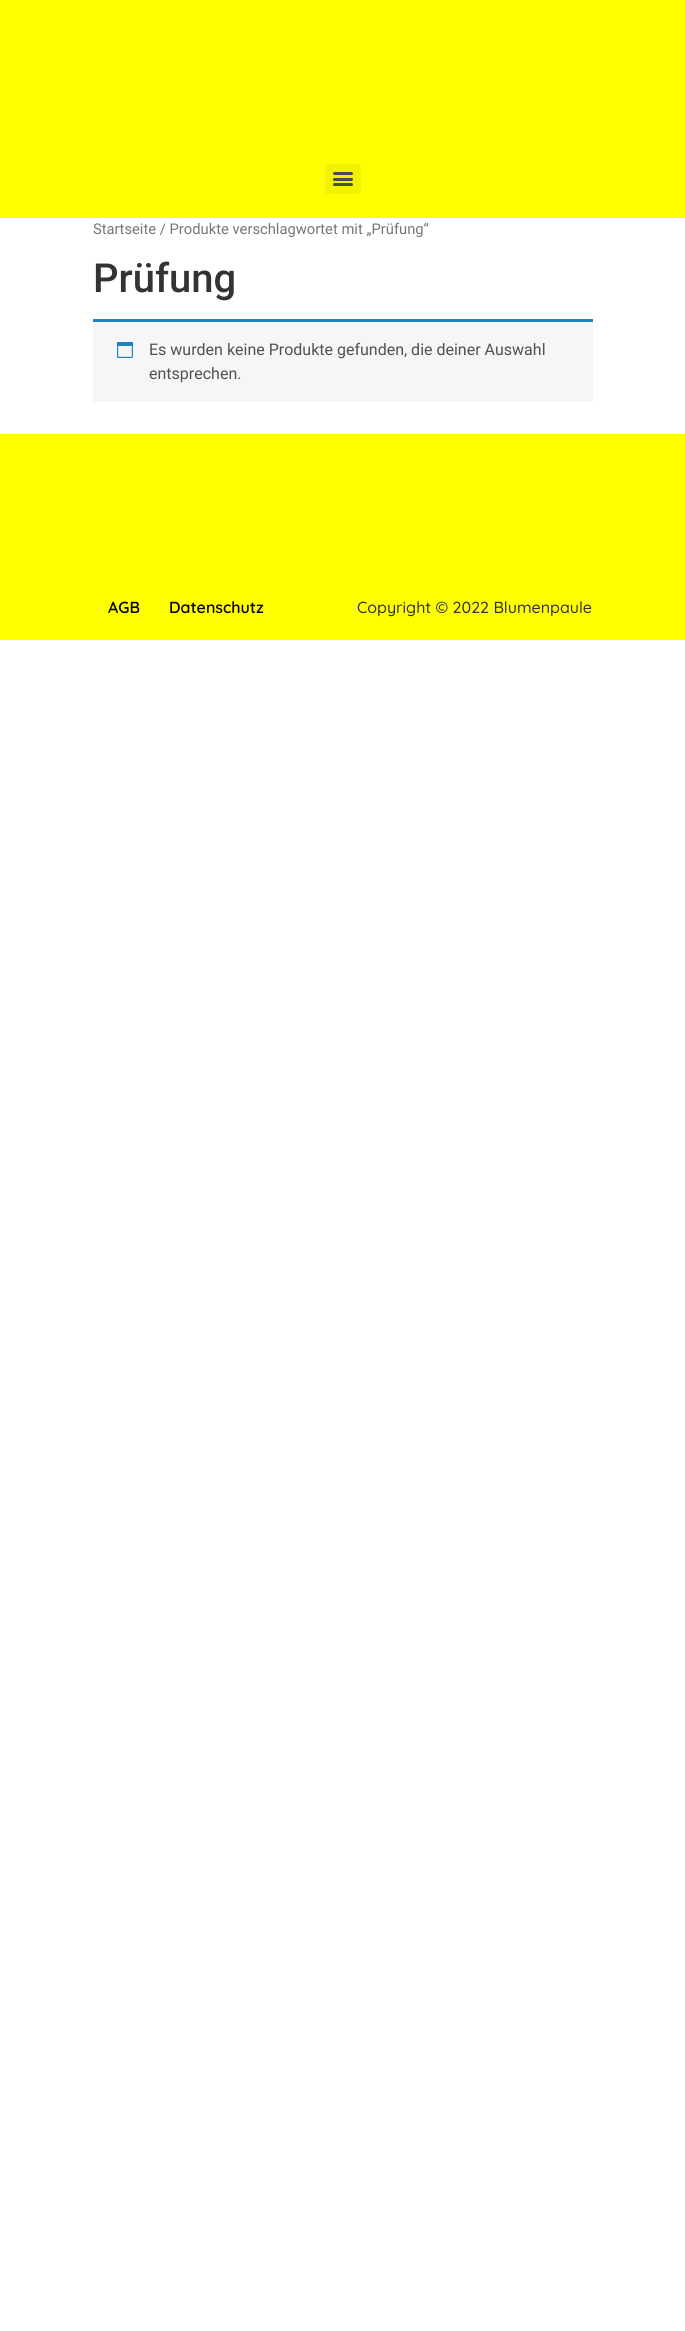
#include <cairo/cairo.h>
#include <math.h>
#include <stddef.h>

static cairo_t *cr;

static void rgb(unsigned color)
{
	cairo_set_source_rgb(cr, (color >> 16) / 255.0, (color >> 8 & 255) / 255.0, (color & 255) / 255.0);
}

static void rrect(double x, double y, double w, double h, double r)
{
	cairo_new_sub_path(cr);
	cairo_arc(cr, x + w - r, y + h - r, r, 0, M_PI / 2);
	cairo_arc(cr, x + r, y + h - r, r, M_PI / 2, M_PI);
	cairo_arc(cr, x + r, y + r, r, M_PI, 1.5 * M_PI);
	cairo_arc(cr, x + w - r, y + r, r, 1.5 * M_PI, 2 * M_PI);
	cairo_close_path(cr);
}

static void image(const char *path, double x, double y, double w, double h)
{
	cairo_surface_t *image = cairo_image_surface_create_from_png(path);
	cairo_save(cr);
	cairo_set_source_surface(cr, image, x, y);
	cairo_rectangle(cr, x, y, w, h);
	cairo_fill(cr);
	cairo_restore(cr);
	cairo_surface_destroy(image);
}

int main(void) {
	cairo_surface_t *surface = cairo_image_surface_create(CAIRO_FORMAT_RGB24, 685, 2331);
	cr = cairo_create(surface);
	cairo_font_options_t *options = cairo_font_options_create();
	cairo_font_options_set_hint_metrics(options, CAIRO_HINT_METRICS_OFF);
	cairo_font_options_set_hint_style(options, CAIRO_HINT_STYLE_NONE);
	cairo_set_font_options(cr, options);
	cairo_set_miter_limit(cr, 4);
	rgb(0xffffff);
	cairo_paint(cr);
	rgb(0xffff00);
	cairo_rectangle(cr, 0, 0, 685, 218);
	cairo_fill(cr);
	rgb(0xf2f200);
	rrect(325, 164, 36, 30, 3);
	cairo_fill(cr);
	rgb(0x494c4f);
	rrect(333, 178, 20, 3, 1.5);
	cairo_fill(cr);
	rrect(333, 172, 20, 3, 1.5);
	cairo_fill(cr);
	rrect(333, 183, 20, 3, 1.5);
	cairo_fill(cr);
	rgb(0xf6f5f8);
	cairo_rectangle(cr, 93, 322, 500, 80);
	cairo_fill(cr);
	rgb(0x1e85be);
	cairo_rectangle(cr, 93, 319, 500, 3);
	cairo_fill(cr);
	image("img/1.png", 117, 342, 16, 16);
	rgb(0xffff00);
	cairo_rectangle(cr, 0, 434, 685, 206);
	cairo_fill(cr);
	cairo_select_font_face(cr, "Roboto", CAIRO_FONT_SLANT_NORMAL, CAIRO_FONT_WEIGHT_NORMAL);
	cairo_set_font_size(cr, 14.75);
	rgb(0x767676);
	cairo_move_to(cr, 93, 234);
	cairo_show_text(cr, "Startseite / Produkte verschlagwortet mit „Prüfung“");
	cairo_select_font_face(cr, "Roboto Medium", CAIRO_FONT_SLANT_NORMAL, CAIRO_FONT_WEIGHT_NORMAL);
	cairo_set_font_size(cr, 40);
	rgb(0x333333);
	cairo_move_to(cr, 93, 292);
	cairo_show_text(cr, "Prüfung");
	cairo_select_font_face(cr, "Roboto", CAIRO_FONT_SLANT_NORMAL, CAIRO_FONT_WEIGHT_NORMAL);
	cairo_set_font_size(cr, 16);
	rgb(0x515151);
	cairo_move_to(cr, 149, 355);
	cairo_show_text(cr, "Es wurden keine Produkte gefunden, die deiner Auswahl");
	cairo_move_to(cr, 149, 379);
	cairo_show_text(cr, "entsprechen.");
	cairo_select_font_face(cr, "Quicksand SemiBold", CAIRO_FONT_SLANT_NORMAL, CAIRO_FONT_WEIGHT_NORMAL);
	rgb(0x000000);
	cairo_move_to(cr, 108, 613);
	cairo_show_text(cr, "AGB");
	cairo_move_to(cr, 169, 613);
	cairo_show_text(cr, "Datenschutz");
	cairo_select_font_face(cr, "Quicksand Medium", CAIRO_FONT_SLANT_NORMAL, CAIRO_FONT_WEIGHT_NORMAL);
	rgb(0x333333);
	cairo_move_to(cr, 357, 613);
	cairo_show_text(cr, "Copyright © 2022 Blumenpaule");
	cairo_surface_write_to_png(surface, "page.png");
	cairo_font_options_destroy(options);
	cairo_destroy(cr);
	cairo_surface_destroy(surface);
	return 0;
}
